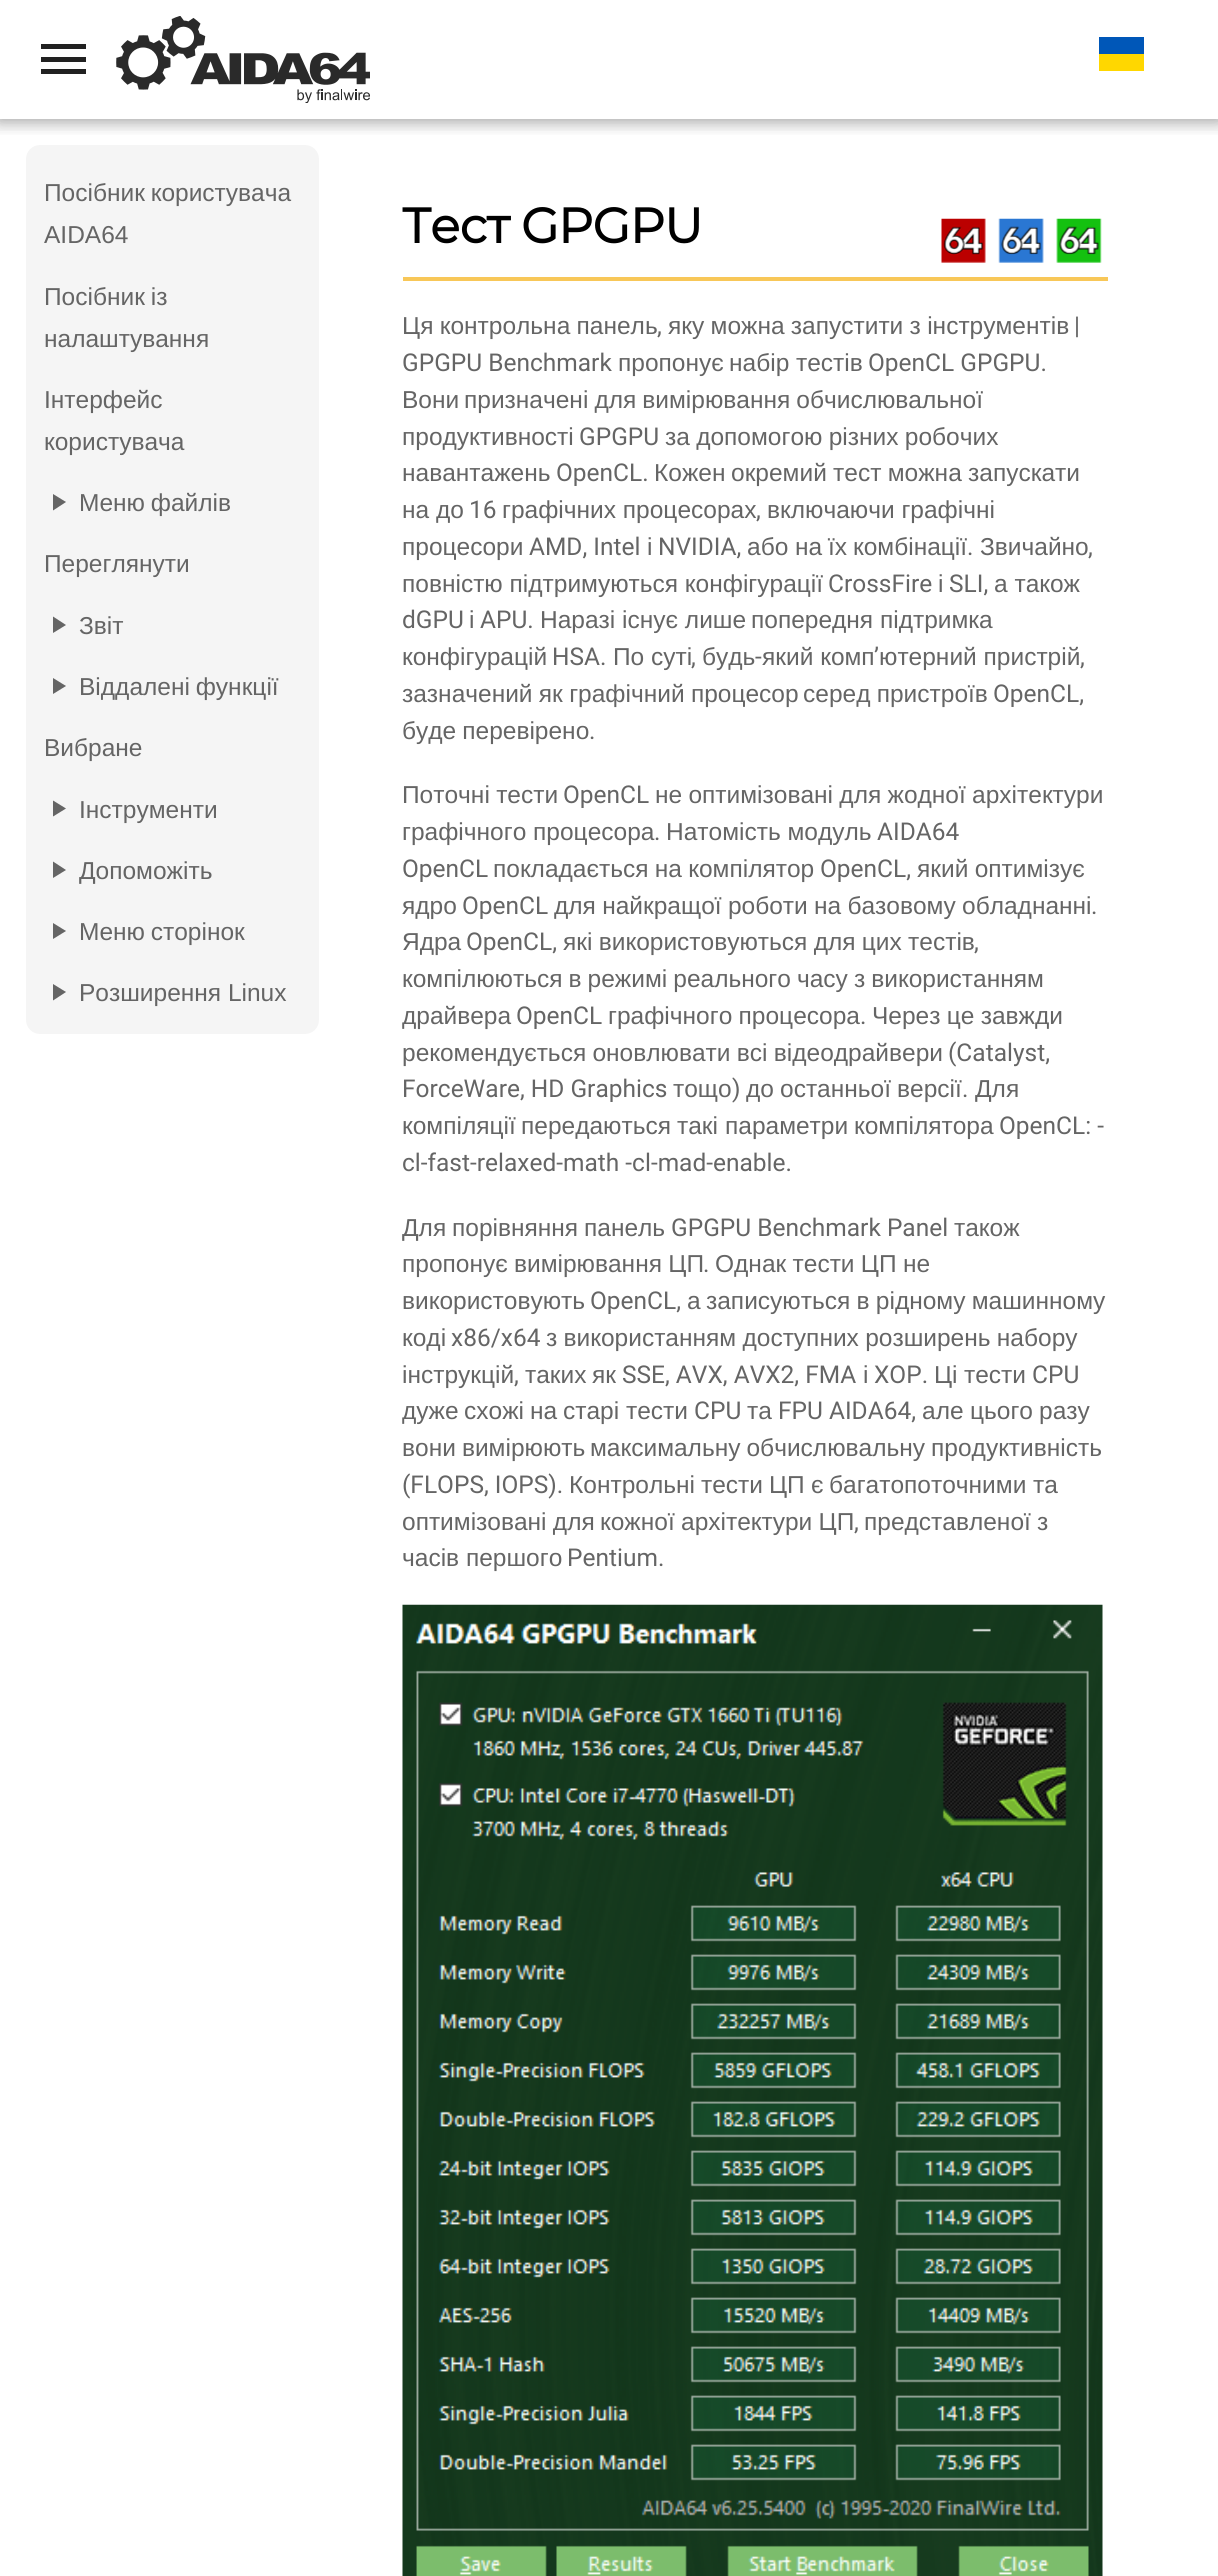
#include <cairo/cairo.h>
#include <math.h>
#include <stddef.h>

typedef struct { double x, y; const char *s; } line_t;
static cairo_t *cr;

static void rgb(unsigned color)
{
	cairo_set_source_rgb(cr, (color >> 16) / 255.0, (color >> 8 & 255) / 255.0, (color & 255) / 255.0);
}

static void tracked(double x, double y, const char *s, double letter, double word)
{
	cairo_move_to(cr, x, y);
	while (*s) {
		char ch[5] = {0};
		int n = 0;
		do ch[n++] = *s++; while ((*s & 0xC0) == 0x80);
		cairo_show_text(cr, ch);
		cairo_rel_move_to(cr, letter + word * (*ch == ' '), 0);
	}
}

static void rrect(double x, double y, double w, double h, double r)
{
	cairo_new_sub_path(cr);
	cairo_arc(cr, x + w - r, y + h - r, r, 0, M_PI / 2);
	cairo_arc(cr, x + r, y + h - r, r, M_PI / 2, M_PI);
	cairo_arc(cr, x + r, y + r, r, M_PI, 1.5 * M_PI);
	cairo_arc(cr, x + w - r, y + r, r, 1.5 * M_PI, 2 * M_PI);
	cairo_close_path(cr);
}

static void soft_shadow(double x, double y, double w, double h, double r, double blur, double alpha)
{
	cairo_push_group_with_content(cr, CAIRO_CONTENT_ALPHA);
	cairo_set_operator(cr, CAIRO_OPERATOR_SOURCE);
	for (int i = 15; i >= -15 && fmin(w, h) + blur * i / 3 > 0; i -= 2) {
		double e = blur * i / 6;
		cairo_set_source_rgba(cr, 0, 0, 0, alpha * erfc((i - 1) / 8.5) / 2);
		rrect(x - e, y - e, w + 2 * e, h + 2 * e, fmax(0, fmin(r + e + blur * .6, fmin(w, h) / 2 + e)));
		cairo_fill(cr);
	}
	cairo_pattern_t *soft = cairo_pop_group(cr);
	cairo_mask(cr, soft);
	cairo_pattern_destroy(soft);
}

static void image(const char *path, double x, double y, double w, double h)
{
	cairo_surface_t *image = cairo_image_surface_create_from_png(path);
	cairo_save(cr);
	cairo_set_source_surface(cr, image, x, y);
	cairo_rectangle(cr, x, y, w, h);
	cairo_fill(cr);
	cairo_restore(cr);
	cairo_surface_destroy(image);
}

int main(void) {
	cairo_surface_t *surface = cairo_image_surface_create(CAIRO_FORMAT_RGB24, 1218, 2576);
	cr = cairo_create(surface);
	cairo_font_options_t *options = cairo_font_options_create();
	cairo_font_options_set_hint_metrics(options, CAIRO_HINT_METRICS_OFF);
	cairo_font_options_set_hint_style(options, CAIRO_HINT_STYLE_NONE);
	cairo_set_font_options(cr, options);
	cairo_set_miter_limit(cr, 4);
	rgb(0xffffff);
	cairo_paint(cr);
	rgb(0x212121);
	cairo_new_path(cr);
	cairo_move_to(cr, 41, 44);
	cairo_line_to(cr, 86, 44);
	cairo_line_to(cr, 86, 49);
	cairo_line_to(cr, 41, 49);
	cairo_close_path(cr);
	cairo_move_to(cr, 41, 62);
	cairo_line_to(cr, 41, 57);
	cairo_line_to(cr, 86, 57);
	cairo_line_to(cr, 86, 62);
	cairo_close_path(cr);
	cairo_move_to(cr, 41, 74);
	cairo_line_to(cr, 41, 69);
	cairo_line_to(cr, 86, 69);
	cairo_line_to(cr, 86, 74);
	cairo_close_path(cr);
	cairo_fill(cr);
	image("img/1.png", 116, 16, 254, 87);
	rgb(0x0057b8);
	cairo_rectangle(cr, 1099, 37, 45, 17);
	cairo_fill(cr);
	rgb(0xffd700);
	cairo_rectangle(cr, 1099, 54, 45, 17);
	cairo_fill(cr);
	rgb(0xf5f5f5);
	rrect(26, 145, 293, 889, 14);
	cairo_fill(cr);
	cairo_save(cr);
	cairo_rectangle(cr, 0, 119, 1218, 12);
	cairo_clip(cr);
	rgb(0x000000);
	soft_shadow(0, 0, 1218, 119, 0, 9, 0.24);
	cairo_restore(cr);
	cairo_save(cr);
	cairo_rectangle(cr, 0, 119, 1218, 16);
	cairo_clip(cr);
	rgb(0x000000);
	soft_shadow(-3, -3, 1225, 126, 0, 9, 0.2);
	cairo_restore(cr);
	rgb(0x656565);
	cairo_new_path(cr);
	cairo_move_to(cr, 53, 494);
	cairo_line_to(cr, 66, 502);
	cairo_line_to(cr, 53, 510.5);
	cairo_close_path(cr);
	cairo_fill(cr);
	cairo_new_path(cr);
	cairo_move_to(cr, 53, 616.5);
	cairo_line_to(cr, 66, 625);
	cairo_line_to(cr, 53, 633);
	cairo_close_path(cr);
	cairo_fill(cr);
	cairo_new_path(cr);
	cairo_move_to(cr, 53, 678);
	cairo_line_to(cr, 66, 686);
	cairo_line_to(cr, 53, 694);
	cairo_close_path(cr);
	cairo_fill(cr);
	cairo_new_path(cr);
	cairo_move_to(cr, 53, 800.5);
	cairo_line_to(cr, 66, 808.5);
	cairo_line_to(cr, 53, 816.5);
	cairo_close_path(cr);
	cairo_fill(cr);
	cairo_new_path(cr);
	cairo_move_to(cr, 53, 861.5);
	cairo_line_to(cr, 66, 870);
	cairo_line_to(cr, 53, 878);
	cairo_close_path(cr);
	cairo_fill(cr);
	cairo_new_path(cr);
	cairo_move_to(cr, 53, 923);
	cairo_line_to(cr, 66, 931);
	cairo_line_to(cr, 53, 939);
	cairo_close_path(cr);
	cairo_fill(cr);
	cairo_new_path(cr);
	cairo_move_to(cr, 53, 984);
	cairo_line_to(cr, 66, 992);
	cairo_line_to(cr, 53, 1000.5);
	cairo_close_path(cr);
	cairo_fill(cr);
	image("img/2.png", 941, 218, 45, 45);
	image("img/3.png", 998, 218, 46, 45);
	image("img/4.png", 1056, 218, 46, 45);
	rgb(0xf8c758);
	cairo_rectangle(cr, 403, 277, 705, 4);
	cairo_fill(cr);
	image("img/5.png", 402, 1604, 701, 972);
	cairo_select_font_face(cr, "Liberation Sans", CAIRO_FONT_SLANT_NORMAL, CAIRO_FONT_WEIGHT_NORMAL);
	cairo_set_font_size(cr, 24.5);
	rgb(0x656565);
	tracked(44, 201, "Посібник користувача", 0, -1);
	cairo_move_to(cr, 44, 243);
	cairo_show_text(cr, "AIDA64");
	tracked(44, 305, "Посібник із", 0, -1);
	{
		static const line_t items[] = {
			{44, 347, "налаштування"},
			{44, 408, "Інтерфейс"},
			{44, 450, "користувача"},
		};
		for (size_t i = 0; i < sizeof items / sizeof *items; i++) {
			cairo_move_to(cr, items[i].x, items[i].y);
			cairo_show_text(cr, items[i].s);
		}
	}
	tracked(79, 511, "Меню файлів", 0, -1);
	cairo_move_to(cr, 44, 572);
	cairo_show_text(cr, "Переглянути");
	cairo_move_to(cr, 79, 634);
	cairo_show_text(cr, "Звіт");
	tracked(79, 695, "Віддалені функції", 0, -1);
	{
		static const line_t items[] = {
			{44, 756, "Вибране"},
			{79, 818, "Інструменти"},
			{79, 879, "Допоможіть"},
		};
		for (size_t i = 0; i < sizeof items / sizeof *items; i++) {
			cairo_move_to(cr, items[i].x, items[i].y);
			cairo_show_text(cr, items[i].s);
		}
	}
	tracked(79, 940, "Меню сторінок", 0, -1);
	cairo_move_to(cr, 79, 1001);
	cairo_show_text(cr, "Розширення Linux");
	cairo_select_font_face(cr, "Montserrat", CAIRO_FONT_SLANT_NORMAL, CAIRO_FONT_WEIGHT_BOLD);
	cairo_set_font_size(cr, 49);
	rgb(0x000000);
	tracked(402, 243, "Тест GPGPU", -0.75, 0);
	cairo_select_font_face(cr, "Liberation Sans", CAIRO_FONT_SLANT_NORMAL, CAIRO_FONT_WEIGHT_NORMAL);
	cairo_set_font_size(cr, 24.5);
	rgb(0x656565);
	tracked(402, 334, "Ця контрольна панель", 0, -0.5);
	cairo_select_font_face(cr, "Roboto", CAIRO_FONT_SLANT_NORMAL, CAIRO_FONT_WEIGHT_NORMAL);
	cairo_move_to(cr, 657, 334);
	cairo_show_text(cr, ",");
	cairo_select_font_face(cr, "Liberation Sans", CAIRO_FONT_SLANT_NORMAL, CAIRO_FONT_WEIGHT_NORMAL);
	tracked(668, 334, "яку можна запустити з інструментів", 0, -0.5);
	cairo_select_font_face(cr, "Roboto", CAIRO_FONT_SLANT_NORMAL, CAIRO_FONT_WEIGHT_NORMAL);
	cairo_move_to(cr, 1074, 334);
	cairo_show_text(cr, "|");
	cairo_move_to(cr, 402, 371);
	cairo_show_text(cr, "GPGPU Benchmark");
	cairo_select_font_face(cr, "Liberation Sans", CAIRO_FONT_SLANT_NORMAL, CAIRO_FONT_WEIGHT_NORMAL);
	{
		static const line_t items[] = {
			{618, 371, "пропонує"},
			{729, 371, "набір"},
			{796, 371, "тестів"},
		};
		for (size_t i = 0; i < sizeof items / sizeof *items; i++) {
			cairo_move_to(cr, items[i].x, items[i].y);
			cairo_show_text(cr, items[i].s);
		}
	}
	cairo_select_font_face(cr, "Roboto", CAIRO_FONT_SLANT_NORMAL, CAIRO_FONT_WEIGHT_NORMAL);
	cairo_move_to(cr, 868, 371);
	cairo_show_text(cr, "OpenCL GPGPU.");
	cairo_select_font_face(cr, "Liberation Sans", CAIRO_FONT_SLANT_NORMAL, CAIRO_FONT_WEIGHT_NORMAL);
	cairo_move_to(cr, 402, 408);
	cairo_show_text(cr, "Вони");
	tracked(464, 408, "призначені для вимірювання обчислювальної", 0, -0.75);
	cairo_move_to(cr, 402, 445);
	cairo_show_text(cr, "продуктивності");
	cairo_select_font_face(cr, "Roboto", CAIRO_FONT_SLANT_NORMAL, CAIRO_FONT_WEIGHT_NORMAL);
	cairo_move_to(cr, 579, 445);
	cairo_show_text(cr, "GPGPU");
	cairo_select_font_face(cr, "Liberation Sans", CAIRO_FONT_SLANT_NORMAL, CAIRO_FONT_WEIGHT_NORMAL);
	tracked(665, 445, "за допомогою різних робочих", 0, -0.5);
	cairo_move_to(cr, 402, 481);
	cairo_show_text(cr, "навантажень");
	cairo_select_font_face(cr, "Roboto", CAIRO_FONT_SLANT_NORMAL, CAIRO_FONT_WEIGHT_NORMAL);
	cairo_move_to(cr, 556, 481);
	cairo_show_text(cr, "OpenCL.");
	cairo_select_font_face(cr, "Liberation Sans", CAIRO_FONT_SLANT_NORMAL, CAIRO_FONT_WEIGHT_NORMAL);
	cairo_move_to(cr, 654, 481);
	cairo_show_text(cr, "Кожен");
	tracked(731, 481, "окремий тест можна запускати", 0, -0.5);
	cairo_move_to(cr, 402, 518);
	cairo_show_text(cr, "на до");
	cairo_select_font_face(cr, "Roboto", CAIRO_FONT_SLANT_NORMAL, CAIRO_FONT_WEIGHT_NORMAL);
	cairo_move_to(cr, 469, 518);
	cairo_show_text(cr, "16");
	cairo_select_font_face(cr, "Liberation Sans", CAIRO_FONT_SLANT_NORMAL, CAIRO_FONT_WEIGHT_NORMAL);
	cairo_move_to(cr, 502, 518);
	cairo_show_text(cr, "графічних процесорах");
	cairo_select_font_face(cr, "Roboto", CAIRO_FONT_SLANT_NORMAL, CAIRO_FONT_WEIGHT_NORMAL);
	cairo_move_to(cr, 756, 518);
	cairo_show_text(cr, ",");
	cairo_select_font_face(cr, "Liberation Sans", CAIRO_FONT_SLANT_NORMAL, CAIRO_FONT_WEIGHT_NORMAL);
	cairo_move_to(cr, 767, 518);
	cairo_show_text(cr, "включаючи графічні");
	cairo_move_to(cr, 402, 555);
	cairo_show_text(cr, "процесори");
	cairo_select_font_face(cr, "Roboto", CAIRO_FONT_SLANT_NORMAL, CAIRO_FONT_WEIGHT_NORMAL);
	cairo_move_to(cr, 529, 555);
	cairo_show_text(cr, "AMD, Intel");
	cairo_select_font_face(cr, "Liberation Sans", CAIRO_FONT_SLANT_NORMAL, CAIRO_FONT_WEIGHT_NORMAL);
	cairo_move_to(cr, 647, 555);
	cairo_show_text(cr, "і");
	cairo_select_font_face(cr, "Roboto", CAIRO_FONT_SLANT_NORMAL, CAIRO_FONT_WEIGHT_NORMAL);
	cairo_move_to(cr, 658, 555);
	cairo_show_text(cr, "NVIDIA,");
	cairo_select_font_face(cr, "Liberation Sans", CAIRO_FONT_SLANT_NORMAL, CAIRO_FONT_WEIGHT_NORMAL);
	{
		static const line_t items[] = {
			{747, 555, "або"},
			{795, 555, "на"},
			{828, 555, "їх"},
			{853, 555, "комбінації"},
		};
		for (size_t i = 0; i < sizeof items / sizeof *items; i++) {
			cairo_move_to(cr, items[i].x, items[i].y);
			cairo_show_text(cr, items[i].s);
		}
	}
	cairo_select_font_face(cr, "Roboto", CAIRO_FONT_SLANT_NORMAL, CAIRO_FONT_WEIGHT_NORMAL);
	cairo_move_to(cr, 967, 555);
	cairo_show_text(cr, ".");
	cairo_select_font_face(cr, "Liberation Sans", CAIRO_FONT_SLANT_NORMAL, CAIRO_FONT_WEIGHT_NORMAL);
	cairo_move_to(cr, 980, 555);
	cairo_show_text(cr, "Звичайно");
	cairo_select_font_face(cr, "Roboto", CAIRO_FONT_SLANT_NORMAL, CAIRO_FONT_WEIGHT_NORMAL);
	cairo_move_to(cr, 1088, 555);
	cairo_show_text(cr, ",");
	cairo_select_font_face(cr, "Liberation Sans", CAIRO_FONT_SLANT_NORMAL, CAIRO_FONT_WEIGHT_NORMAL);
	cairo_move_to(cr, 402, 592);
	cairo_show_text(cr, "повністю підтримуються конфігурації");
	cairo_select_font_face(cr, "Roboto", CAIRO_FONT_SLANT_NORMAL, CAIRO_FONT_WEIGHT_NORMAL);
	cairo_move_to(cr, 828, 592);
	cairo_show_text(cr, "CrossFire");
	cairo_select_font_face(cr, "Liberation Sans", CAIRO_FONT_SLANT_NORMAL, CAIRO_FONT_WEIGHT_NORMAL);
	cairo_move_to(cr, 938, 592);
	cairo_show_text(cr, "і");
	cairo_select_font_face(cr, "Roboto", CAIRO_FONT_SLANT_NORMAL, CAIRO_FONT_WEIGHT_NORMAL);
	cairo_move_to(cr, 949, 592);
	cairo_show_text(cr, "SLI,");
	cairo_select_font_face(cr, "Liberation Sans", CAIRO_FONT_SLANT_NORMAL, CAIRO_FONT_WEIGHT_NORMAL);
	cairo_move_to(cr, 994, 592);
	cairo_show_text(cr, "а також");
	cairo_select_font_face(cr, "Roboto", CAIRO_FONT_SLANT_NORMAL, CAIRO_FONT_WEIGHT_NORMAL);
	cairo_move_to(cr, 402, 628);
	cairo_show_text(cr, "dGPU");
	cairo_select_font_face(cr, "Liberation Sans", CAIRO_FONT_SLANT_NORMAL, CAIRO_FONT_WEIGHT_NORMAL);
	cairo_move_to(cr, 469, 628);
	cairo_show_text(cr, "і");
	cairo_select_font_face(cr, "Roboto", CAIRO_FONT_SLANT_NORMAL, CAIRO_FONT_WEIGHT_NORMAL);
	cairo_move_to(cr, 480, 628);
	cairo_show_text(cr, "APU.");
	cairo_select_font_face(cr, "Liberation Sans", CAIRO_FONT_SLANT_NORMAL, CAIRO_FONT_WEIGHT_NORMAL);
	{
		static const line_t items[] = {
			{540, 628, "Наразі існує лише"},
			{751, 628, "попередня підтримка"},
			{402, 665, "конфігурацій"},
		};
		for (size_t i = 0; i < sizeof items / sizeof *items; i++) {
			cairo_move_to(cr, items[i].x, items[i].y);
			cairo_show_text(cr, items[i].s);
		}
	}
	cairo_select_font_face(cr, "Roboto", CAIRO_FONT_SLANT_NORMAL, CAIRO_FONT_WEIGHT_NORMAL);
	cairo_move_to(cr, 552, 665);
	cairo_show_text(cr, "HSA.");
	cairo_select_font_face(cr, "Liberation Sans", CAIRO_FONT_SLANT_NORMAL, CAIRO_FONT_WEIGHT_NORMAL);
	cairo_move_to(cr, 613, 665);
	cairo_show_text(cr, "По суті");
	cairo_move_to(cr, 702, 665);
	cairo_show_text(cr, "будь");
	cairo_select_font_face(cr, "Roboto", CAIRO_FONT_SLANT_NORMAL, CAIRO_FONT_WEIGHT_NORMAL);
	cairo_move_to(cr, 755, 665);
	cairo_show_text(cr, "-");
	cairo_select_font_face(cr, "Liberation Sans", CAIRO_FONT_SLANT_NORMAL, CAIRO_FONT_WEIGHT_NORMAL);
	cairo_move_to(cr, 762, 665);
	cairo_show_text(cr, "який комп");
	cairo_select_font_face(cr, "Roboto", CAIRO_FONT_SLANT_NORMAL, CAIRO_FONT_WEIGHT_NORMAL);
	cairo_move_to(cr, 874, 665);
	cairo_show_text(cr, "’");
	cairo_select_font_face(cr, "Liberation Sans", CAIRO_FONT_SLANT_NORMAL, CAIRO_FONT_WEIGHT_NORMAL);
	cairo_move_to(cr, 879, 665);
	cairo_show_text(cr, "ютерний пристрій");
	cairo_select_font_face(cr, "Roboto", CAIRO_FONT_SLANT_NORMAL, CAIRO_FONT_WEIGHT_NORMAL);
	cairo_move_to(cr, 691, 665);
	cairo_show_text(cr, ",");
	cairo_move_to(cr, 1080, 665);
	cairo_show_text(cr, ",");
	cairo_select_font_face(cr, "Liberation Sans", CAIRO_FONT_SLANT_NORMAL, CAIRO_FONT_WEIGHT_NORMAL);
	tracked(402, 702, "зазначений як графічний процесор", 0, -0.5);
	tracked(803, 702, "серед пристроїв", 0, -0.5);
	cairo_select_font_face(cr, "Roboto", CAIRO_FONT_SLANT_NORMAL, CAIRO_FONT_WEIGHT_NORMAL);
	cairo_move_to(cr, 993, 702);
	cairo_show_text(cr, "OpenCL,");
	cairo_select_font_face(cr, "Liberation Sans", CAIRO_FONT_SLANT_NORMAL, CAIRO_FONT_WEIGHT_NORMAL);
	tracked(402, 739, "буде перевірено", 0, -0.75);
	cairo_select_font_face(cr, "Roboto", CAIRO_FONT_SLANT_NORMAL, CAIRO_FONT_WEIGHT_NORMAL);
	cairo_move_to(cr, 589, 739);
	cairo_show_text(cr, ".");
	cairo_select_font_face(cr, "Liberation Sans", CAIRO_FONT_SLANT_NORMAL, CAIRO_FONT_WEIGHT_NORMAL);
	tracked(402, 803, "Поточні тести", 0, -0.5);
	cairo_select_font_face(cr, "Roboto", CAIRO_FONT_SLANT_NORMAL, CAIRO_FONT_WEIGHT_NORMAL);
	cairo_move_to(cr, 563, 803);
	cairo_show_text(cr, "OpenCL");
	cairo_select_font_face(cr, "Liberation Sans", CAIRO_FONT_SLANT_NORMAL, CAIRO_FONT_WEIGHT_NORMAL);
	tracked(655, 803, "не оптимізовані для жодної архітектури", 0, -0.5);
	cairo_move_to(cr, 402, 840);
	cairo_show_text(cr, "графічного процесора");
	cairo_select_font_face(cr, "Roboto", CAIRO_FONT_SLANT_NORMAL, CAIRO_FONT_WEIGHT_NORMAL);
	cairo_move_to(cr, 654, 840);
	cairo_show_text(cr, ".");
	cairo_select_font_face(cr, "Liberation Sans", CAIRO_FONT_SLANT_NORMAL, CAIRO_FONT_WEIGHT_NORMAL);
	cairo_move_to(cr, 666, 840);
	cairo_show_text(cr, "Натомість модуль");
	cairo_select_font_face(cr, "Roboto", CAIRO_FONT_SLANT_NORMAL, CAIRO_FONT_WEIGHT_NORMAL);
	cairo_move_to(cr, 877, 840);
	cairo_show_text(cr, "AIDA64");
	cairo_move_to(cr, 402, 877);
	cairo_show_text(cr, "OpenCL");
	cairo_select_font_face(cr, "Liberation Sans", CAIRO_FONT_SLANT_NORMAL, CAIRO_FONT_WEIGHT_NORMAL);
	tracked(493, 877, "покладається на компілятор", 0, -0.5);
	cairo_select_font_face(cr, "Roboto", CAIRO_FONT_SLANT_NORMAL, CAIRO_FONT_WEIGHT_NORMAL);
	cairo_move_to(cr, 820, 877);
	cairo_show_text(cr, "OpenCL,");
	cairo_select_font_face(cr, "Liberation Sans", CAIRO_FONT_SLANT_NORMAL, CAIRO_FONT_WEIGHT_NORMAL);
	tracked(917, 877, "який оптимізує", 0, -0.5);
	cairo_move_to(cr, 402, 914);
	cairo_show_text(cr, "ядро");
	cairo_select_font_face(cr, "Roboto", CAIRO_FONT_SLANT_NORMAL, CAIRO_FONT_WEIGHT_NORMAL);
	cairo_move_to(cr, 462, 914);
	cairo_show_text(cr, "OpenCL");
	cairo_select_font_face(cr, "Liberation Sans", CAIRO_FONT_SLANT_NORMAL, CAIRO_FONT_WEIGHT_NORMAL);
	tracked(554, 914, "для найкращої роботи на базовому обладнанні", 0, -0.5);
	cairo_select_font_face(cr, "Roboto", CAIRO_FONT_SLANT_NORMAL, CAIRO_FONT_WEIGHT_NORMAL);
	cairo_move_to(cr, 1091, 914);
	cairo_show_text(cr, ".");
	cairo_select_font_face(cr, "Liberation Sans", CAIRO_FONT_SLANT_NORMAL, CAIRO_FONT_WEIGHT_NORMAL);
	cairo_move_to(cr, 402, 950);
	cairo_show_text(cr, "Ядра");
	cairo_select_font_face(cr, "Roboto", CAIRO_FONT_SLANT_NORMAL, CAIRO_FONT_WEIGHT_NORMAL);
	cairo_move_to(cr, 466, 950);
	cairo_show_text(cr, "OpenCL,");
	cairo_select_font_face(cr, "Liberation Sans", CAIRO_FONT_SLANT_NORMAL, CAIRO_FONT_WEIGHT_NORMAL);
	tracked(563, 950, "які використовуються для цих тестів", 0, -0.5);
	cairo_select_font_face(cr, "Roboto", CAIRO_FONT_SLANT_NORMAL, CAIRO_FONT_WEIGHT_NORMAL);
	cairo_move_to(cr, 974, 950);
	cairo_show_text(cr, ",");
	cairo_select_font_face(cr, "Liberation Sans", CAIRO_FONT_SLANT_NORMAL, CAIRO_FONT_WEIGHT_NORMAL);
	tracked(402, 987, "компілюються в режимі реального часу з використанням", 0, -0.75);
	cairo_move_to(cr, 402, 1024);
	cairo_show_text(cr, "драйвера");
	cairo_select_font_face(cr, "Roboto", CAIRO_FONT_SLANT_NORMAL, CAIRO_FONT_WEIGHT_NORMAL);
	cairo_move_to(cr, 516, 1024);
	cairo_show_text(cr, "OpenCL");
	cairo_select_font_face(cr, "Liberation Sans", CAIRO_FONT_SLANT_NORMAL, CAIRO_FONT_WEIGHT_NORMAL);
	tracked(608, 1024, "графічного процесора", 0, -0.5);
	cairo_select_font_face(cr, "Roboto", CAIRO_FONT_SLANT_NORMAL, CAIRO_FONT_WEIGHT_NORMAL);
	cairo_move_to(cr, 860, 1024);
	cairo_show_text(cr, ".");
	cairo_select_font_face(cr, "Liberation Sans", CAIRO_FONT_SLANT_NORMAL, CAIRO_FONT_WEIGHT_NORMAL);
	tracked(872, 1024, "Через це завжди", 0, -0.5);
	tracked(402, 1061, "рекомендується оновлювати всі відеодрайвери", 0, -0.5);
	cairo_select_font_face(cr, "Roboto", CAIRO_FONT_SLANT_NORMAL, CAIRO_FONT_WEIGHT_NORMAL);
	cairo_move_to(cr, 948, 1061);
	cairo_show_text(cr, "(Catalyst,");
	cairo_move_to(cr, 402, 1097);
	cairo_show_text(cr, "ForceWare, HD Graphics");
	cairo_select_font_face(cr, "Liberation Sans", CAIRO_FONT_SLANT_NORMAL, CAIRO_FONT_WEIGHT_NORMAL);
	cairo_move_to(cr, 673, 1097);
	cairo_show_text(cr, "тощо");
	cairo_select_font_face(cr, "Roboto", CAIRO_FONT_SLANT_NORMAL, CAIRO_FONT_WEIGHT_NORMAL);
	cairo_move_to(cr, 732, 1097);
	cairo_show_text(cr, ")");
	cairo_select_font_face(cr, "Liberation Sans", CAIRO_FONT_SLANT_NORMAL, CAIRO_FONT_WEIGHT_NORMAL);
	{
		static const line_t items[] = {
			{746, 1097, "до"},
			{780, 1097, "останньої"},
			{897, 1097, "версії"},
		};
		for (size_t i = 0; i < sizeof items / sizeof *items; i++) {
			cairo_move_to(cr, items[i].x, items[i].y);
			cairo_show_text(cr, items[i].s);
		}
	}
	cairo_select_font_face(cr, "Roboto", CAIRO_FONT_SLANT_NORMAL, CAIRO_FONT_WEIGHT_NORMAL);
	cairo_move_to(cr, 962, 1097);
	cairo_show_text(cr, ".");
	cairo_select_font_face(cr, "Liberation Sans", CAIRO_FONT_SLANT_NORMAL, CAIRO_FONT_WEIGHT_NORMAL);
	{
		static const line_t items[] = {
			{975, 1097, "Для"},
			{402, 1134, "компіляції"},
			{521, 1134, "передаються"},
			{677, 1134, "такі"},
			{725, 1134, "параметри"},
			{854, 1134, "компілятора"},
		};
		for (size_t i = 0; i < sizeof items / sizeof *items; i++) {
			cairo_move_to(cr, items[i].x, items[i].y);
			cairo_show_text(cr, items[i].s);
		}
	}
	cairo_select_font_face(cr, "Roboto", CAIRO_FONT_SLANT_NORMAL, CAIRO_FONT_WEIGHT_NORMAL);
	cairo_move_to(cr, 999, 1134);
	cairo_show_text(cr, "OpenCL: -");
	cairo_move_to(cr, 402, 1171);
	cairo_show_text(cr, "cl-fast-relaxed-math -cl-mad-enable.");
	cairo_select_font_face(cr, "Liberation Sans", CAIRO_FONT_SLANT_NORMAL, CAIRO_FONT_WEIGHT_NORMAL);
	{
		static const line_t items[] = {
			{402, 1236, "Для"},
			{452, 1236, "порівняння"},
			{584, 1236, "панель"},
		};
		for (size_t i = 0; i < sizeof items / sizeof *items; i++) {
			cairo_move_to(cr, items[i].x, items[i].y);
			cairo_show_text(cr, items[i].s);
		}
	}
	cairo_select_font_face(cr, "Roboto", CAIRO_FONT_SLANT_NORMAL, CAIRO_FONT_WEIGHT_NORMAL);
	cairo_move_to(cr, 671, 1236);
	cairo_show_text(cr, "GPGPU Benchmark Panel");
	cairo_select_font_face(cr, "Liberation Sans", CAIRO_FONT_SLANT_NORMAL, CAIRO_FONT_WEIGHT_NORMAL);
	cairo_move_to(cr, 954, 1236);
	cairo_show_text(cr, "також");
	tracked(402, 1272, "пропонує вимірювання ЦП", 0, -0.5);
	cairo_select_font_face(cr, "Roboto", CAIRO_FONT_SLANT_NORMAL, CAIRO_FONT_WEIGHT_NORMAL);
	cairo_move_to(cr, 703, 1272);
	cairo_show_text(cr, ".");
	cairo_select_font_face(cr, "Liberation Sans", CAIRO_FONT_SLANT_NORMAL, CAIRO_FONT_WEIGHT_NORMAL);
	tracked(715, 1272, "Однак тести ЦП не", 0, -0.5);
	cairo_move_to(cr, 402, 1309);
	cairo_show_text(cr, "використовують");
	cairo_select_font_face(cr, "Roboto", CAIRO_FONT_SLANT_NORMAL, CAIRO_FONT_WEIGHT_NORMAL);
	cairo_move_to(cr, 590, 1309);
	cairo_show_text(cr, "OpenCL,");
	cairo_select_font_face(cr, "Liberation Sans", CAIRO_FONT_SLANT_NORMAL, CAIRO_FONT_WEIGHT_NORMAL);
	cairo_move_to(cr, 687, 1309);
	cairo_show_text(cr, "а");
	tracked(706, 1309, "записуються в рідному машинному", 0, -0.5);
	cairo_move_to(cr, 402, 1346);
	cairo_show_text(cr, "коді");
	cairo_select_font_face(cr, "Roboto", CAIRO_FONT_SLANT_NORMAL, CAIRO_FONT_WEIGHT_NORMAL);
	cairo_move_to(cr, 451, 1346);
	cairo_show_text(cr, "x86/x64");
	cairo_select_font_face(cr, "Liberation Sans", CAIRO_FONT_SLANT_NORMAL, CAIRO_FONT_WEIGHT_NORMAL);
	tracked(546, 1346, "з використанням доступних розширень набору", 0, -0.5);
	cairo_move_to(cr, 402, 1383);
	cairo_show_text(cr, "інструкцій");
	cairo_select_font_face(cr, "Roboto", CAIRO_FONT_SLANT_NORMAL, CAIRO_FONT_WEIGHT_NORMAL);
	cairo_move_to(cr, 514, 1383);
	cairo_show_text(cr, ",");
	cairo_select_font_face(cr, "Liberation Sans", CAIRO_FONT_SLANT_NORMAL, CAIRO_FONT_WEIGHT_NORMAL);
	cairo_move_to(cr, 525, 1383);
	cairo_show_text(cr, "таких");
	cairo_move_to(cr, 592, 1383);
	cairo_show_text(cr, "як");
	cairo_select_font_face(cr, "Roboto", CAIRO_FONT_SLANT_NORMAL, CAIRO_FONT_WEIGHT_NORMAL);
	cairo_move_to(cr, 622, 1383);
	cairo_show_text(cr, "SSE, AVX, AVX2, FMA");
	cairo_select_font_face(cr, "Liberation Sans", CAIRO_FONT_SLANT_NORMAL, CAIRO_FONT_WEIGHT_NORMAL);
	cairo_move_to(cr, 863, 1383);
	cairo_show_text(cr, "і");
	cairo_select_font_face(cr, "Roboto", CAIRO_FONT_SLANT_NORMAL, CAIRO_FONT_WEIGHT_NORMAL);
	cairo_move_to(cr, 874, 1383);
	cairo_show_text(cr, "XOP.");
	cairo_select_font_face(cr, "Liberation Sans", CAIRO_FONT_SLANT_NORMAL, CAIRO_FONT_WEIGHT_NORMAL);
	cairo_move_to(cr, 934, 1383);
	cairo_show_text(cr, "Ці");
	cairo_move_to(cr, 964, 1383);
	cairo_show_text(cr, "тести");
	cairo_select_font_face(cr, "Roboto", CAIRO_FONT_SLANT_NORMAL, CAIRO_FONT_WEIGHT_NORMAL);
	cairo_move_to(cr, 1032, 1383);
	cairo_show_text(cr, "CPU");
	cairo_select_font_face(cr, "Liberation Sans", CAIRO_FONT_SLANT_NORMAL, CAIRO_FONT_WEIGHT_NORMAL);
	{
		static const line_t items[] = {
			{402, 1419, "дуже"},
			{464, 1419, "схожі"},
			{530, 1419, "на"},
			{563, 1419, "старі"},
			{626, 1419, "тести"},
		};
		for (size_t i = 0; i < sizeof items / sizeof *items; i++) {
			cairo_move_to(cr, items[i].x, items[i].y);
			cairo_show_text(cr, items[i].s);
		}
	}
	cairo_select_font_face(cr, "Roboto", CAIRO_FONT_SLANT_NORMAL, CAIRO_FONT_WEIGHT_NORMAL);
	cairo_move_to(cr, 694, 1419);
	cairo_show_text(cr, "CPU");
	cairo_select_font_face(cr, "Liberation Sans", CAIRO_FONT_SLANT_NORMAL, CAIRO_FONT_WEIGHT_NORMAL);
	cairo_move_to(cr, 747, 1419);
	cairo_show_text(cr, "та");
	cairo_select_font_face(cr, "Roboto", CAIRO_FONT_SLANT_NORMAL, CAIRO_FONT_WEIGHT_NORMAL);
	cairo_move_to(cr, 778, 1419);
	cairo_show_text(cr, "FPU AIDA64,");
	cairo_select_font_face(cr, "Liberation Sans", CAIRO_FONT_SLANT_NORMAL, CAIRO_FONT_WEIGHT_NORMAL);
	{
		static const line_t items[] = {
			{922, 1419, "але"},
			{970, 1419, "цього"},
			{1039, 1419, "разу"},
		};
		for (size_t i = 0; i < sizeof items / sizeof *items; i++) {
			cairo_move_to(cr, items[i].x, items[i].y);
			cairo_show_text(cr, items[i].s);
		}
	}
	tracked(402, 1456, "вони вимірюють", 0, -0.75);
	tracked(590, 1456, "максимальну обчислювальну продуктивність", 0, -0.75);
	cairo_select_font_face(cr, "Roboto", CAIRO_FONT_SLANT_NORMAL, CAIRO_FONT_WEIGHT_NORMAL);
	cairo_move_to(cr, 402, 1493);
	cairo_show_text(cr, "(FLOPS, IOPS).");
	cairo_select_font_face(cr, "Liberation Sans", CAIRO_FONT_SLANT_NORMAL, CAIRO_FONT_WEIGHT_NORMAL);
	{
		static const line_t items[] = {
			{569, 1493, "Контрольні"},
			{701, 1493, "тести"},
			{769, 1493, "ЦП"},
			{811, 1493, "є"},
			{829, 1493, "багатопоточними"},
			{1033, 1493, "та"},
		};
		for (size_t i = 0; i < sizeof items / sizeof *items; i++) {
			cairo_move_to(cr, items[i].x, items[i].y);
			cairo_show_text(cr, items[i].s);
		}
	}
	tracked(402, 1530, "оптимізовані для", 0, -0.5);
	tracked(600, 1530, "кожної архітектури ЦП", 0, -0.5);
	cairo_select_font_face(cr, "Roboto", CAIRO_FONT_SLANT_NORMAL, CAIRO_FONT_WEIGHT_NORMAL);
	cairo_move_to(cr, 854, 1530);
	cairo_show_text(cr, ",");
	cairo_select_font_face(cr, "Liberation Sans", CAIRO_FONT_SLANT_NORMAL, CAIRO_FONT_WEIGHT_NORMAL);
	tracked(864, 1530, "представленої з", 0, -0.5);
	cairo_move_to(cr, 402, 1566);
	cairo_show_text(cr, "часів першого");
	cairo_select_font_face(cr, "Roboto", CAIRO_FONT_SLANT_NORMAL, CAIRO_FONT_WEIGHT_NORMAL);
	cairo_move_to(cr, 567, 1566);
	cairo_show_text(cr, "Pentium.");
	cairo_surface_write_to_png(surface, "page.png");
	cairo_font_options_destroy(options);
	cairo_destroy(cr);
	cairo_surface_destroy(surface);
	return 0;
}
